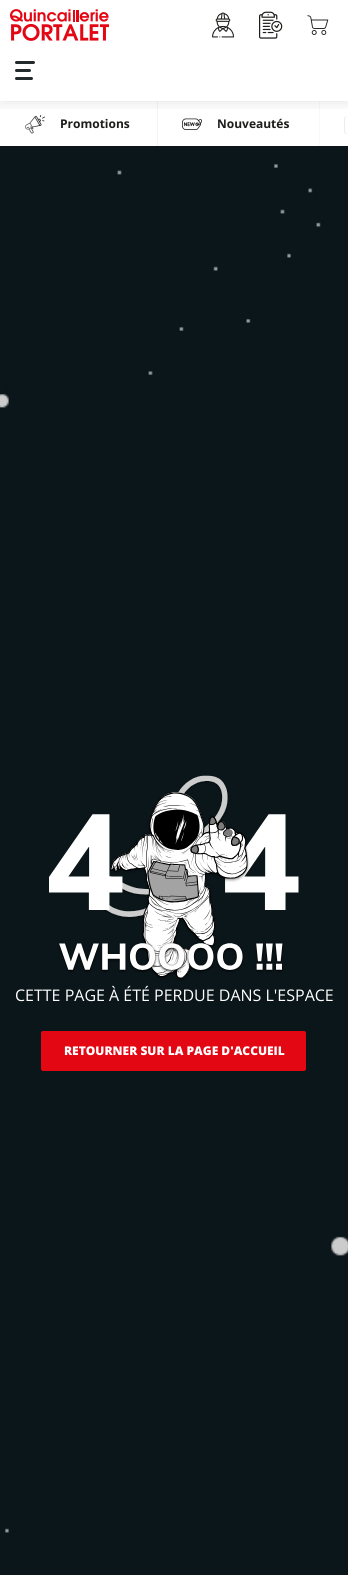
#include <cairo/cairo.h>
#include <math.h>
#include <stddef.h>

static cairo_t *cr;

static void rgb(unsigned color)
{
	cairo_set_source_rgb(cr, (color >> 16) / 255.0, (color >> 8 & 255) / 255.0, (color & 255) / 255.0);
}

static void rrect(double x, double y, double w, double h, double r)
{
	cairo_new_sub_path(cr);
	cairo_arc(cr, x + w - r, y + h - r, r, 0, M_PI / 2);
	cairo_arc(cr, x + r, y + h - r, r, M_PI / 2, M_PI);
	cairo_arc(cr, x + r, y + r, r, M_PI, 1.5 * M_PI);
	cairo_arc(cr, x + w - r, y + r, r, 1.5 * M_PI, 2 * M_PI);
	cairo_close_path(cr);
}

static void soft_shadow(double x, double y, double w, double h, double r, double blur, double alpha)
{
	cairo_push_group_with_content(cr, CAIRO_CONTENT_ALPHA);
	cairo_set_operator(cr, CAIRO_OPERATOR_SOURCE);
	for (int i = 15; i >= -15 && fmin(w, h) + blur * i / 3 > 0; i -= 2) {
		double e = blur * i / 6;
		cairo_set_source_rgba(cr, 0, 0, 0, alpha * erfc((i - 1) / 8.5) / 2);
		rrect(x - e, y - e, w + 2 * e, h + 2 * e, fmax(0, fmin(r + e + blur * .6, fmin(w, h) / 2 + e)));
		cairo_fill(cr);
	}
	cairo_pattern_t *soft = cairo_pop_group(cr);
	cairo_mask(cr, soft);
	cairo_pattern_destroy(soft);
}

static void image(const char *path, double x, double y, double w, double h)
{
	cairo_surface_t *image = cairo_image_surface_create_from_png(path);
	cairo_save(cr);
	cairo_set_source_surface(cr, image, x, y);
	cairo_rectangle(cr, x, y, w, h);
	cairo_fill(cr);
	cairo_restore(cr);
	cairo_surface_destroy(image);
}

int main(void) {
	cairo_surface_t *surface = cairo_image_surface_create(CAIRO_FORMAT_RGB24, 348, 1575);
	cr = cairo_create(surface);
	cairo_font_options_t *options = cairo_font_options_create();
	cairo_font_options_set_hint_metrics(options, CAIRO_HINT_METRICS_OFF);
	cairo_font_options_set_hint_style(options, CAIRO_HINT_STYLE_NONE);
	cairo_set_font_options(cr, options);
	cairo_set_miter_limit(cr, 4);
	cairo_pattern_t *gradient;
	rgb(0xffffff);
	cairo_paint(cr);
	rgb(0xf2f5f7);
	cairo_rectangle(cr, 0, 101, 1, 45);
	cairo_fill(cr);
	image("img/5.png", 25, 115, 20, 19);
	gradient = cairo_pattern_create_linear(0, 73, 40, 73);
	cairo_pattern_add_color_stop_rgba(gradient, 0, 1, 1, 1, 1);
	cairo_pattern_add_color_stop_rgba(gradient, 1, 1, 1, 1, 0);
	cairo_set_source(cr, gradient);
	cairo_pattern_destroy(gradient);
	cairo_rectangle(cr, 0, 101, 39, 45);
	cairo_fill(cr);
	rgb(0xf2f5f7);
	cairo_rectangle(cr, 157, 101, 1, 45);
	cairo_fill(cr);
	cairo_rectangle(cr, 319, 101, 1, 45);
	cairo_fill(cr);
	image("img/6.png", 182, 118, 20, 12);
	image("img/7.png", 344, 116, 4, 19);
	gradient = cairo_pattern_create_linear(348, 73, 308, 73);
	cairo_pattern_add_color_stop_rgba(gradient, 0, 1, 1, 1, 1);
	cairo_pattern_add_color_stop_rgba(gradient, 1, 1, 1, 1, 0);
	cairo_set_source(cr, gradient);
	cairo_pattern_destroy(gradient);
	cairo_rectangle(cr, 319, 101, 29, 45);
	cairo_fill(cr);
	cairo_save(cr);
	cairo_rectangle(cr, 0, 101, 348, 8);
	cairo_clip(cr);
	rgb(0x000000);
	soft_shadow(0, 2, 348, 101, 0, 7, 0.1);
	cairo_restore(cr);
	image("img/1.png", 10, 9, 99, 32);
	image("img/2.png", 212, 12, 22, 26);
	image("img/3.png", 259, 11, 24, 28);
	image("img/4.png", 307, 15, 22, 20);
	rgb(0x232b2c);
	rrect(15, 61, 20, 3, 1.5);
	cairo_fill(cr);
	rrect(15, 69, 16, 3, 1.5);
	cairo_fill(cr);
	rrect(15, 77, 18, 3, 1.5);
	cairo_fill(cr);
	image("img/8.png", 0, 146, 348, 1429);
	image("img/9.png", 49, 775, 250, 206);
	rgb(0xe30613);
	rrect(41, 1031, 265, 40, 2);
	cairo_fill(cr);
	cairo_select_font_face(cr, "Open Sans", CAIRO_FONT_SLANT_NORMAL, CAIRO_FONT_WEIGHT_BOLD);
	cairo_set_font_size(cr, 12);
	rgb(0x1d1d1b);
	cairo_move_to(cr, 60, 128);
	cairo_show_text(cr, "Promotions");
	cairo_move_to(cr, 217, 128);
	cairo_show_text(cr, "Nouveautés");
	cairo_select_font_face(cr, "Open Sans", CAIRO_FONT_SLANT_NORMAL, CAIRO_FONT_WEIGHT_NORMAL);
	cairo_set_font_size(cr, 16);
	rgb(0xffffff);
	cairo_move_to(cr, 15, 1001);
	cairo_show_text(cr, "CETTE PAGE À ÉTÉ PERDUE DANS L'ESPACE");
	cairo_select_font_face(cr, "Open Sans ExtraBold", CAIRO_FONT_SLANT_NORMAL, CAIRO_FONT_WEIGHT_NORMAL);
	cairo_set_font_size(cr, 12);
	cairo_move_to(cr, 64, 1055);
	cairo_show_text(cr, "RETOURNER SUR LA PAGE D'ACCUEIL");
	cairo_surface_write_to_png(surface, "page.png");
	cairo_font_options_destroy(options);
	cairo_destroy(cr);
	cairo_surface_destroy(surface);
	return 0;
}
